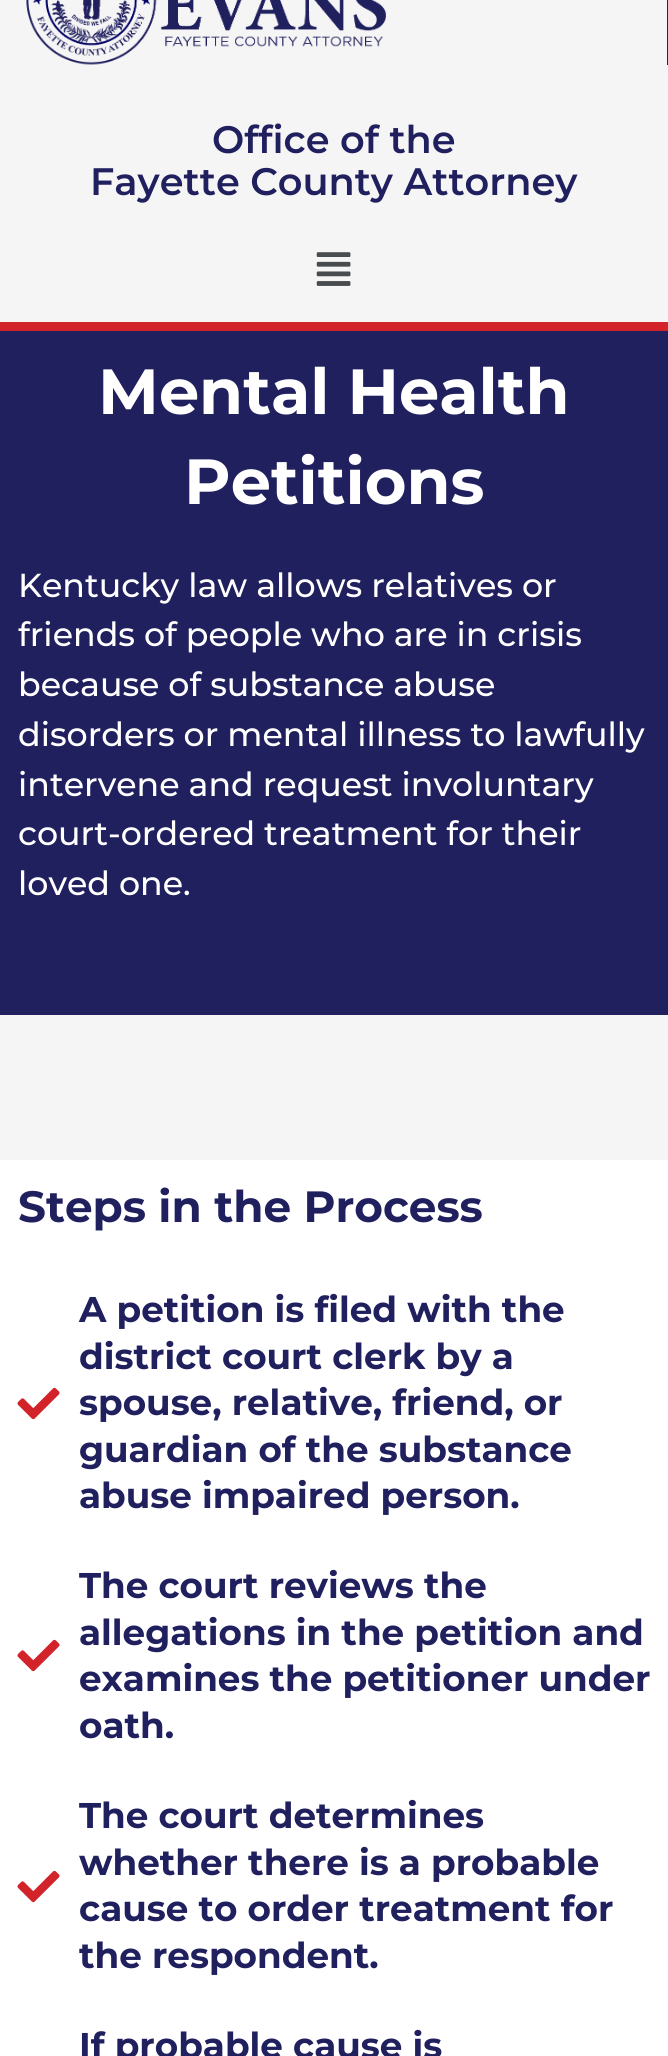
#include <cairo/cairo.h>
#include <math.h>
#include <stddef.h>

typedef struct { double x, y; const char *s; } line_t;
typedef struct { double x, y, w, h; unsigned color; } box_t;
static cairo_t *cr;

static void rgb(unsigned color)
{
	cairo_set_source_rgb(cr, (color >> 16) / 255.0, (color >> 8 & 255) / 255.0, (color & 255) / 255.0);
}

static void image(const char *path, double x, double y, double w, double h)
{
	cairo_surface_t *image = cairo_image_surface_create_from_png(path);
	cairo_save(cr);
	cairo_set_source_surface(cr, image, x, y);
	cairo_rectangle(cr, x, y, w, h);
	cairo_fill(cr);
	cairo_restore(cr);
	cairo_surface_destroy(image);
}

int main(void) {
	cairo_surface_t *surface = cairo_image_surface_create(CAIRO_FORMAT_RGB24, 668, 2056);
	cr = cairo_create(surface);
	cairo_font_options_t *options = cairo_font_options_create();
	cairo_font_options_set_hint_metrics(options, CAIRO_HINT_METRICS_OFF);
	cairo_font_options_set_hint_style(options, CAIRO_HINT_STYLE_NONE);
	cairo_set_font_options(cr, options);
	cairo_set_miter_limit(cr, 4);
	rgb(0xffffff);
	cairo_paint(cr);
	{
		static const box_t items[] = {
			{0, 0, 668, 322, 0xf5f5f5},
			{0, 322, 668, 9, 0xd2232a},
			{667, 0, 1, 65, 0x21205f},
		};
		for (size_t i = 0; i < sizeof items / sizeof *items; i++) {
			rgb(items[i].color);
			cairo_rectangle(cr, items[i].x, items[i].y, items[i].w, items[i].h);
			cairo_fill(cr);
		}
	}
	image("img/1.png", 26, 0, 360, 65);
	image("img/2.png", 316, 252, 35, 34);
	cairo_rectangle(cr, 0, 331, 668, 684);
	cairo_fill(cr);
	rgb(0xf5f5f5);
	cairo_rectangle(cr, 0, 1015, 668, 145);
	cairo_fill(cr);
	image("img/3.png", 17, 1387, 43, 33);
	image("img/3.png", 17, 1639, 43, 33);
	image("img/3.png", 17, 1870, 43, 33);
	cairo_select_font_face(cr, "Montserrat SemiBold", CAIRO_FONT_SLANT_NORMAL, CAIRO_FONT_WEIGHT_NORMAL);
	cairo_set_font_size(cr, 38.25);
	rgb(0x21205f);
	cairo_move_to(cr, 212, 153);
	cairo_show_text(cr, "Office of the");
	cairo_move_to(cr, 90, 195);
	cairo_show_text(cr, "Fayette County Attorney");
	cairo_select_font_face(cr, "Montserrat", CAIRO_FONT_SLANT_NORMAL, CAIRO_FONT_WEIGHT_BOLD);
	cairo_set_font_size(cr, 63.75);
	rgb(0xffffff);
	cairo_move_to(cr, 98, 414);
	cairo_show_text(cr, "Mental Health");
	cairo_move_to(cr, 184, 504);
	cairo_show_text(cr, "Petitions");
	cairo_select_font_face(cr, "Montserrat Medium", CAIRO_FONT_SLANT_NORMAL, CAIRO_FONT_WEIGHT_NORMAL);
	cairo_set_font_size(cr, 33.25);
	{
		static const line_t items[] = {
			{18, 597, "Kentucky law allows relatives or"},
			{18, 646, "friends of people who are in crisis"},
			{18, 696, "because of substance abuse"},
			{18, 746, "disorders or mental illness to lawfully"},
			{18, 796, "intervene and request involuntary"},
			{18, 845, "court-ordered treatment for their"},
			{18, 895, "loved one."},
		};
		for (size_t i = 0; i < sizeof items / sizeof *items; i++) {
			cairo_move_to(cr, items[i].x, items[i].y);
			cairo_show_text(cr, items[i].s);
		}
	}
	cairo_select_font_face(cr, "Montserrat", CAIRO_FONT_SLANT_NORMAL, CAIRO_FONT_WEIGHT_BOLD);
	cairo_set_font_size(cr, 43.75);
	rgb(0x21205f);
	cairo_move_to(cr, 18, 1222);
	cairo_show_text(cr, "Steps in the Process");
	cairo_set_font_size(cr, 35.75);
	{
		static const line_t items[] = {
			{79, 1322, "A petition is filed with the"},
			{79, 1369, "district court clerk by a"},
			{79, 1415, "spouse, relative, friend, or"},
			{79, 1462, "guardian of the substance"},
			{79, 1508, "abuse impaired person."},
			{79, 1598, "The court reviews the"},
			{79, 1645, "allegations in the petition and"},
			{79, 1691, "examines the petitioner under"},
			{79, 1738, "oath."},
			{79, 1828, "The court determines"},
			{79, 1875, "whether there is a probable"},
			{79, 1921, "cause to order treatment for"},
			{79, 1968, "the respondent."},
			{79, 2058, "If probable cause is"},
		};
		for (size_t i = 0; i < sizeof items / sizeof *items; i++) {
			cairo_move_to(cr, items[i].x, items[i].y);
			cairo_show_text(cr, items[i].s);
		}
	}
	cairo_surface_write_to_png(surface, "page.png");
	cairo_font_options_destroy(options);
	cairo_destroy(cr);
	cairo_surface_destroy(surface);
	return 0;
}
